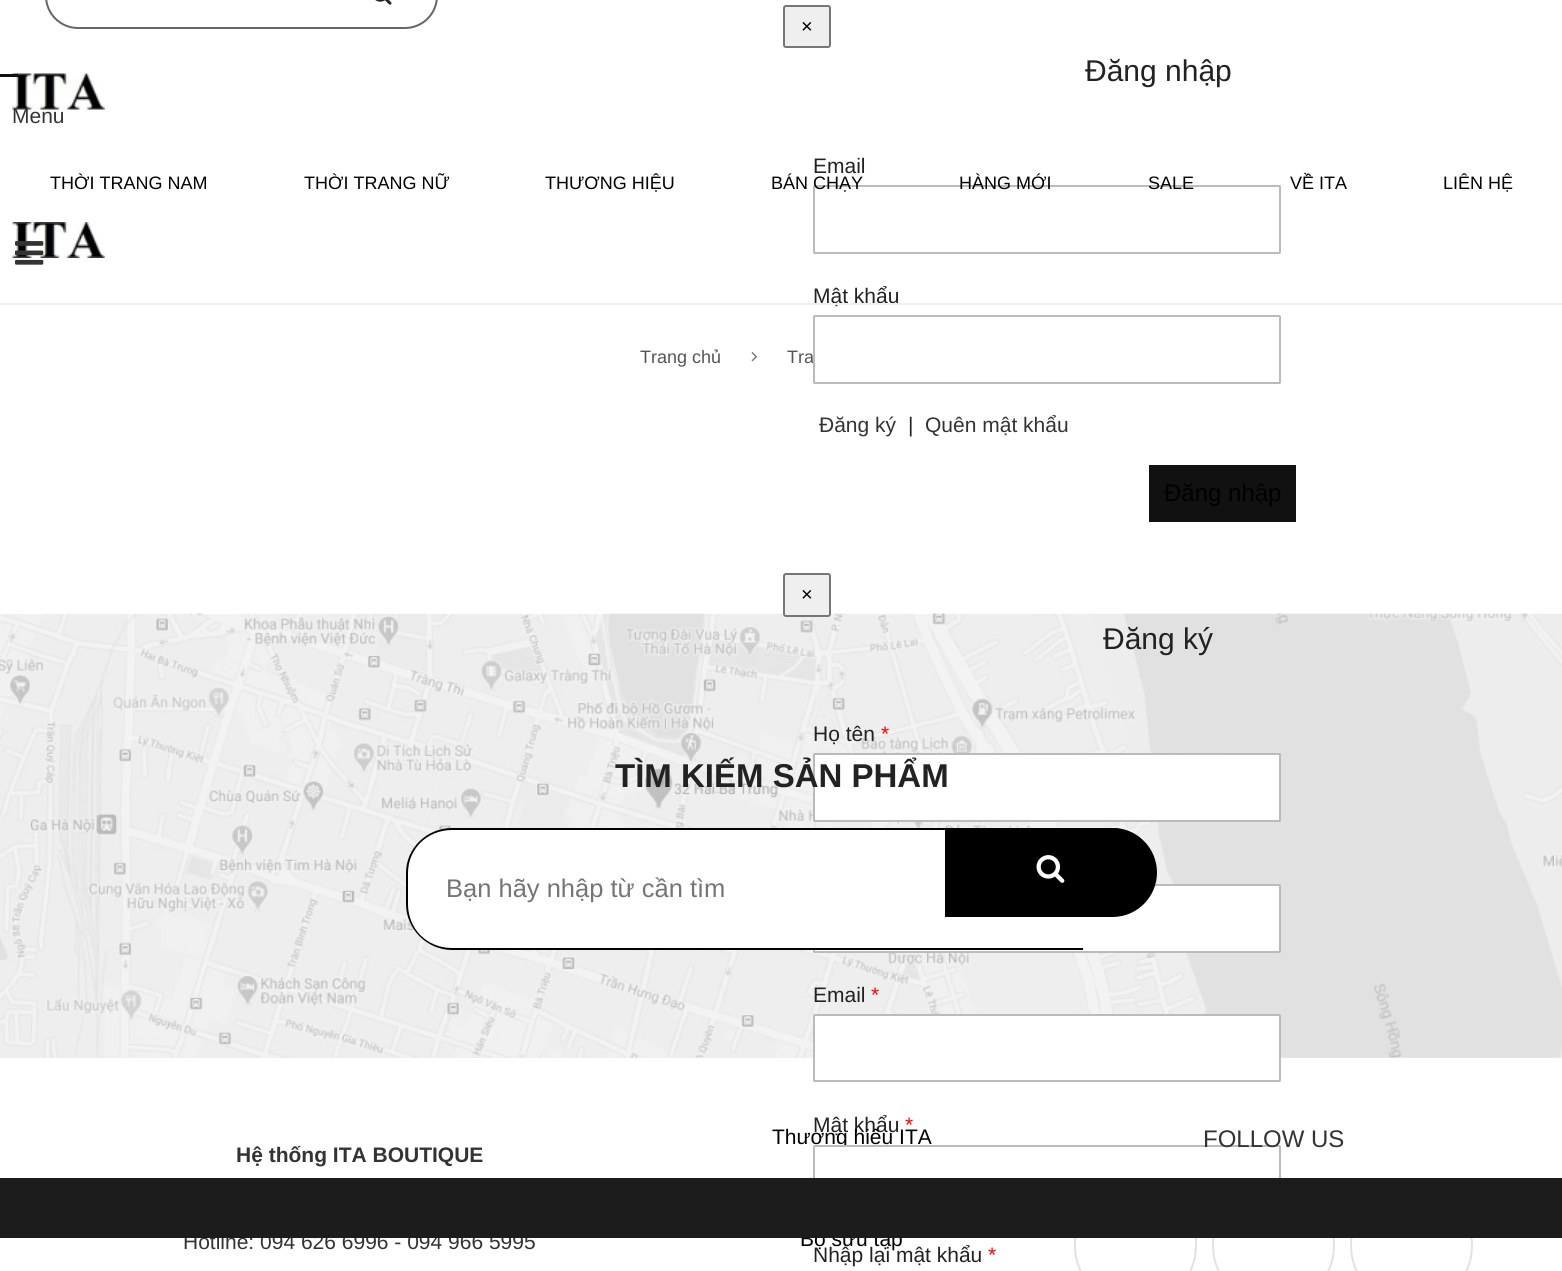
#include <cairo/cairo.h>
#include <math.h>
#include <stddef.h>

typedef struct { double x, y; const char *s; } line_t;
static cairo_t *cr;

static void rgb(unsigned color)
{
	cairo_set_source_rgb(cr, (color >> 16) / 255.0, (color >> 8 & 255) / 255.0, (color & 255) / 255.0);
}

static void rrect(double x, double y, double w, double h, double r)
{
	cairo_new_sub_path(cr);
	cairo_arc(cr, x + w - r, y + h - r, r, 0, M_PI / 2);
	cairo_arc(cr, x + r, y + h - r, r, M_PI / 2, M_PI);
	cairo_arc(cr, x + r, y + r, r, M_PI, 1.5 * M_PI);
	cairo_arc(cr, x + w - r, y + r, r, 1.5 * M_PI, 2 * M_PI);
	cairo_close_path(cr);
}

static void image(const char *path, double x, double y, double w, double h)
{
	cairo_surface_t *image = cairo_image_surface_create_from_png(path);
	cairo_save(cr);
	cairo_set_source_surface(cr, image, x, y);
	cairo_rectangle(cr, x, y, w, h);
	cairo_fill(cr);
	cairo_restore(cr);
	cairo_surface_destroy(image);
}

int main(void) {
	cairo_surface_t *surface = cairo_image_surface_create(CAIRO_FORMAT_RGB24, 1562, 1271);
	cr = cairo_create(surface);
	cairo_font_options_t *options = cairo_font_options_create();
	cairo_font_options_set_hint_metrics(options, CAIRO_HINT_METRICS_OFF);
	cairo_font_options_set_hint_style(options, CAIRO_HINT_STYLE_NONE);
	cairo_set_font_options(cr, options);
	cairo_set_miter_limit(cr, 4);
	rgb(0xffffff);
	cairo_paint(cr);
	rrect(46, -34, 391, 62, 32);
	rgb(0x666666);
	cairo_stroke(cr);
	image("img/1.png", 375, 0, 17, 5);
	rgb(0xefefef);
	rrect(784, 6, 46, 41, 2);
	cairo_fill_preserve(cr);
	rgb(0x767676);
	cairo_stroke(cr);
	rrect(814, 186, 466, 67, 0.5);
	rgb(0xbbbbbb);
	cairo_stroke(cr);
	rgb(0x111111);
	cairo_rectangle(cr, 1149, 465, 147, 57);
	cairo_fill(cr);
	rgb(0xebebeb);
	cairo_rectangle(cr, 0, 614, 1562, 444);
	cairo_fill(cr);
	image("img/6.png", 0, 613, 1562, 445);
	rgb(0xefefef);
	rrect(784, 574, 46, 42, 2);
	cairo_fill_preserve(cr);
	rgb(0x767676);
	cairo_stroke(cr);
	rgb(0xffffff);
	rrect(814, 754, 466, 67, 0.5);
	cairo_fill_preserve(cr);
	rgb(0xbbbbbb);
	cairo_stroke(cr);
	rgb(0xffffff);
	rrect(814, 885, 466, 67, 0.5);
	cairo_fill_preserve(cr);
	rgb(0xbbbbbb);
	cairo_stroke(cr);
	rgb(0xffffff);
	rrect(814, 1015, 466, 66, 0.5);
	cairo_fill_preserve(cr);
	rgb(0xbbbbbb);
	cairo_stroke(cr);
	image("img/2.png", 12, 73, 93, 37);
	rgb(0x111111);
	cairo_rectangle(cr, 0, 74, 18, 3);
	cairo_fill(cr);
	image("img/3.png", 12, 222, 93, 36);
	image("img/4.png", 15, 241, 29, 24);
	image("img/5.png", 751, 352, 6, 10);
	rgb(0xffffff);
	cairo_new_path(cr);
	cairo_move_to(cr, 452, 828);
	cairo_line_to(cr, 1083, 828);
	cairo_line_to(cr, 1083, 950);
	cairo_line_to(cr, 452, 950);
	cairo_curve_to(cr, 427, 950, 407, 930, 407, 905);
	cairo_line_to(cr, 407, 873);
	cairo_curve_to(cr, 407, 848, 427, 828, 452, 828);
	cairo_close_path(cr);
	cairo_fill(cr);
	rgb(0x000000);
	cairo_set_fill_rule(cr, CAIRO_FILL_RULE_EVEN_ODD);
	cairo_new_path(cr);
	cairo_move_to(cr, 452, 828);
	cairo_line_to(cr, 1083, 828);
	cairo_line_to(cr, 1083, 950);
	cairo_line_to(cr, 452, 950);
	cairo_curve_to(cr, 427, 950, 406, 929, 406, 904);
	cairo_line_to(cr, 406, 873);
	cairo_curve_to(cr, 406, 848, 427, 828, 452, 828);
	cairo_close_path(cr);
	cairo_move_to(cr, 452, 830);
	cairo_line_to(cr, 1083, 830);
	cairo_line_to(cr, 1083, 948);
	cairo_line_to(cr, 452, 948);
	cairo_curve_to(cr, 427, 948, 408, 929, 408, 904);
	cairo_line_to(cr, 408, 873);
	cairo_curve_to(cr, 408, 849, 427, 830, 452, 830);
	cairo_close_path(cr);
	cairo_fill(cr);
	cairo_new_path(cr);
	cairo_move_to(cr, 945, 828);
	cairo_line_to(cr, 1112.5, 828);
	cairo_curve_to(cr, 1137, 828, 1157, 848, 1157, 872.5);
	cairo_curve_to(cr, 1157, 897, 1137, 917, 1112.5, 917);
	cairo_line_to(cr, 945, 917);
	cairo_close_path(cr);
	cairo_fill(cr);
	cairo_new_path(cr);
	cairo_move_to(cr, 945, 828);
	cairo_line_to(cr, 1112, 828);
	cairo_curve_to(cr, 1137, 828, 1156, 848, 1156, 872);
	cairo_curve_to(cr, 1156, 897, 1137, 916, 1112, 916);
	cairo_line_to(cr, 945, 916);
	cairo_close_path(cr);
	cairo_move_to(cr, 945, 830);
	cairo_line_to(cr, 1112, 830);
	cairo_curve_to(cr, 1136, 830, 1155, 849, 1155, 872);
	cairo_curve_to(cr, 1155, 896, 1136, 915, 1112, 915);
	cairo_line_to(cr, 945, 915);
	cairo_close_path(cr);
	cairo_fill(cr);
	image("img/7.png", 1036, 855, 29, 28);
	cairo_arc(cr, 1411.5, 1245.5, 60.5, 0, 2 * M_PI);
	rgb(0xe2e2e2);
	cairo_stroke(cr);
	cairo_select_font_face(cr, "Liberation Sans", CAIRO_FONT_SLANT_NORMAL, CAIRO_FONT_WEIGHT_NORMAL);
	cairo_set_font_size(cr, 20);
	rgb(0x000000);
	cairo_move_to(cr, 801, 33);
	cairo_show_text(cr, "×");
	cairo_set_font_size(cr, 30);
	rgb(0x222222);
	cairo_move_to(cr, 1085, 81);
	cairo_show_text(cr, "Đăng nhập");
	cairo_set_font_size(cr, 21);
	cairo_move_to(cr, 813, 173);
	cairo_show_text(cr, "Email");
	cairo_move_to(cr, 813, 303);
	cairo_show_text(cr, "Mật khẩu");
	rgb(0x333333);
	cairo_move_to(cr, 819, 432);
	cairo_show_text(cr, "Đăng ký");
	rgb(0x222222);
	cairo_move_to(cr, 908, 432);
	cairo_show_text(cr, "|");
	rgb(0x333333);
	cairo_move_to(cr, 925, 432);
	cairo_show_text(cr, "Quên mật khẩu");
	cairo_set_font_size(cr, 24);
	rgb(0x000000);
	cairo_move_to(cr, 1164, 501);
	cairo_show_text(cr, "Đăng nhập");
	cairo_set_font_size(cr, 20);
	cairo_move_to(cr, 801, 601);
	cairo_show_text(cr, "×");
	cairo_set_font_size(cr, 30);
	rgb(0x222222);
	cairo_move_to(cr, 1103, 649);
	cairo_show_text(cr, "Đăng ký");
	cairo_set_font_size(cr, 21);
	cairo_move_to(cr, 813, 741);
	cairo_show_text(cr, "Họ tên");
	rgb(0xff0000);
	cairo_move_to(cr, 881, 741);
	cairo_show_text(cr, "*");
	rgb(0x222222);
	cairo_move_to(cr, 813, 1002);
	cairo_show_text(cr, "Email");
	rgb(0xff0000);
	cairo_move_to(cr, 871, 1002);
	cairo_show_text(cr, "*");
	rgb(0x222222);
	cairo_move_to(cr, 813, 1132);
	cairo_show_text(cr, "Mật khẩu");
	rgb(0xff0000);
	cairo_move_to(cr, 905, 1132);
	cairo_show_text(cr, "*");
	rgb(0x222222);
	cairo_move_to(cr, 813, 1262);
	cairo_show_text(cr, "Nhập lại mật khẩu");
	rgb(0xff0000);
	cairo_move_to(cr, 988, 1262);
	cairo_show_text(cr, "*");
	rgb(0xefefef);
	cairo_rectangle(cr, 0, 303, 1562, 2);
	cairo_fill(cr);
	rgb(0x333333);
	cairo_move_to(cr, 12, 123);
	cairo_show_text(cr, "Menu");
	cairo_set_font_size(cr, 18);
	rgb(0x000000);
	{
		static const line_t items[] = {
			{50, 189, "THỜI TRANG NAM"},
			{304, 189, "THỜI TRANG NỮ"},
			{545, 189, "THƯƠNG HIỆU"},
			{771, 189, "BÁN CHẠY"},
			{959, 189, "HÀNG MỚI"},
			{1148, 189, "SALE"},
			{1290, 189, "VỀ ITA"},
			{1443, 189, "LIÊN HỆ"},
		};
		for (size_t i = 0; i < sizeof items / sizeof *items; i++) {
			cairo_move_to(cr, items[i].x, items[i].y);
			cairo_show_text(cr, items[i].s);
		}
	}
	rgb(0x555555);
	cairo_move_to(cr, 640, 363);
	cairo_show_text(cr, "Trang chủ");
	cairo_move_to(cr, 787, 363);
	cairo_show_text(cr, "Tra");
	rgb(0xffffff);
	rrect(814, 316, 466, 67, 0.5);
	cairo_fill_preserve(cr);
	rgb(0xbbbbbb);
	cairo_stroke(cr);
	cairo_select_font_face(cr, "Liberation Sans", CAIRO_FONT_SLANT_NORMAL, CAIRO_FONT_WEIGHT_BOLD);
	cairo_set_font_size(cr, 33);
	rgb(0x222222);
	cairo_move_to(cr, 615, 787);
	cairo_show_text(cr, "TÌM KIẾM SẢN PHẨM");
	cairo_select_font_face(cr, "Liberation Sans", CAIRO_FONT_SLANT_NORMAL, CAIRO_FONT_WEIGHT_NORMAL);
	cairo_set_font_size(cr, 25.5);
	rgb(0x757575);
	cairo_move_to(cr, 446, 897);
	cairo_show_text(cr, "Bạn hãy nhập từ cần tìm");
	cairo_set_font_size(cr, 21);
	rgb(0x000000);
	cairo_move_to(cr, 772, 1144);
	cairo_show_text(cr, "Thương hiệu ITA");
	rgb(0xffffff);
	rrect(814, 1146, 466, 65, 0.5);
	cairo_fill_preserve(cr);
	rgb(0xbbbbbb);
	cairo_stroke(cr);
	rgb(0x000000);
	cairo_move_to(cr, 800, 1246);
	cairo_show_text(cr, "Bộ sưu tập");
	cairo_set_font_size(cr, 24);
	rgb(0x333333);
	cairo_move_to(cr, 1203, 1147);
	cairo_show_text(cr, "FOLLOW US");
	rgb(0xffffff);
	cairo_new_path(cr);
	cairo_arc(cr, 1135.5, 1245.5, 60.5, 0, 2 * M_PI);
	cairo_fill_preserve(cr);
	rgb(0xe2e2e2);
	cairo_stroke(cr);
	rgb(0xffffff);
	cairo_arc(cr, 1273.5, 1245.5, 60.5, 0, 2 * M_PI);
	cairo_fill_preserve(cr);
	rgb(0xe2e2e2);
	cairo_stroke(cr);
	cairo_select_font_face(cr, "Liberation Sans", CAIRO_FONT_SLANT_NORMAL, CAIRO_FONT_WEIGHT_BOLD);
	cairo_set_font_size(cr, 21);
	rgb(0x333333);
	cairo_move_to(cr, 236, 1162);
	cairo_show_text(cr, "Hệ thống ITA BOUTIQUE");
	cairo_select_font_face(cr, "Liberation Sans", CAIRO_FONT_SLANT_NORMAL, CAIRO_FONT_WEIGHT_NORMAL);
	cairo_move_to(cr, 183, 1249);
	cairo_show_text(cr, "Hotline: 094 626 6996 - 094 966 5995");
	rgb(0x1c1c1c);
	cairo_rectangle(cr, 0, 1178, 1562, 60);
	cairo_fill(cr);
	cairo_surface_write_to_png(surface, "page.png");
	cairo_font_options_destroy(options);
	cairo_destroy(cr);
	cairo_surface_destroy(surface);
	return 0;
}
